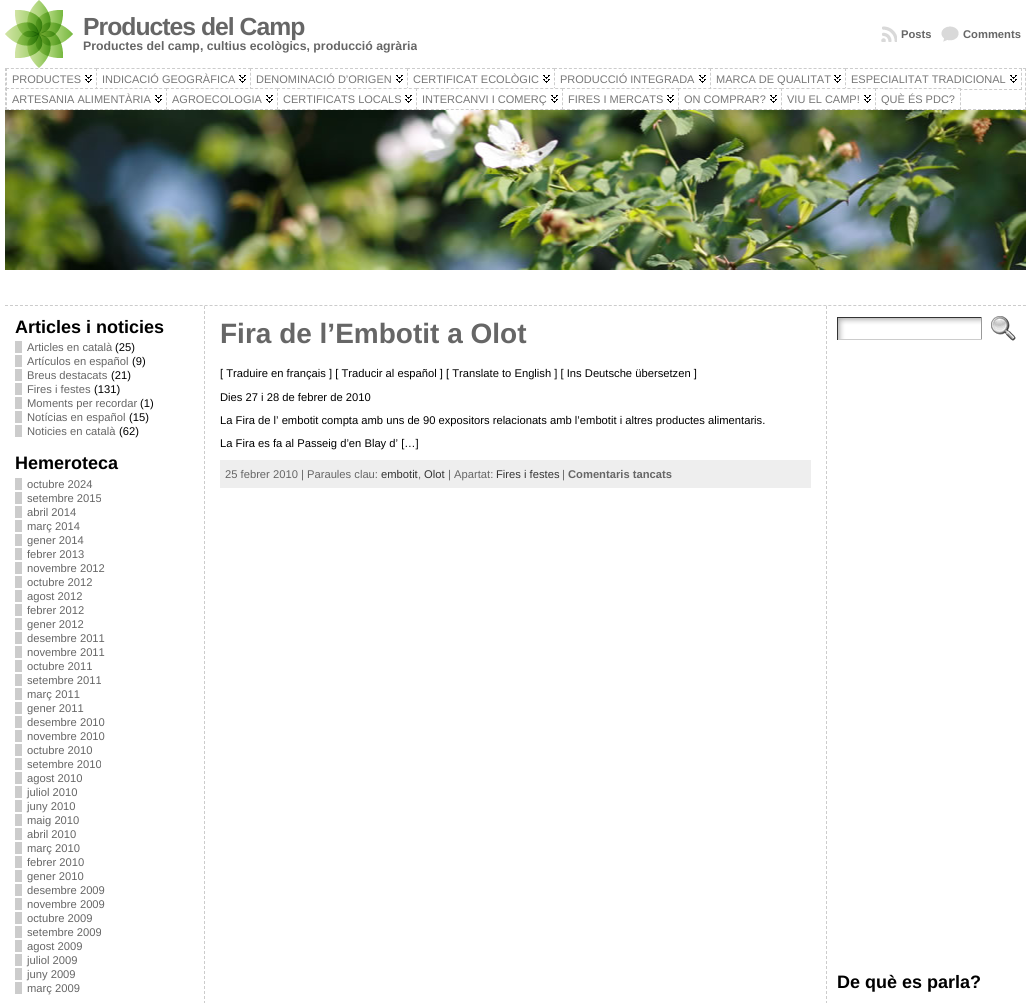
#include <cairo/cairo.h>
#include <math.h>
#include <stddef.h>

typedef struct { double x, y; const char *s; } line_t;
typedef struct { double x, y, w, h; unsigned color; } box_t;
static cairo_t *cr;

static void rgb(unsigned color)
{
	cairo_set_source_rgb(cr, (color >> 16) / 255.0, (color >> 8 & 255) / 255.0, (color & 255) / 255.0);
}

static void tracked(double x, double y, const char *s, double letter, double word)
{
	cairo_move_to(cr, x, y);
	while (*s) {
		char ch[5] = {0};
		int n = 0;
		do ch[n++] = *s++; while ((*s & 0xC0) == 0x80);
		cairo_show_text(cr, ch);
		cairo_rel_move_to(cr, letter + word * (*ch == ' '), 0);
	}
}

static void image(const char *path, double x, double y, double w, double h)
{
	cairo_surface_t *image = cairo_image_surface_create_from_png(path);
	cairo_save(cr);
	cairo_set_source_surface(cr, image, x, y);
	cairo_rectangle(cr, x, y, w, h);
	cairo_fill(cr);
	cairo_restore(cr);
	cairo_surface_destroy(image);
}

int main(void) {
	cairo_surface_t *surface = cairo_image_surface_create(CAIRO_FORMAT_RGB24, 1031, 1003);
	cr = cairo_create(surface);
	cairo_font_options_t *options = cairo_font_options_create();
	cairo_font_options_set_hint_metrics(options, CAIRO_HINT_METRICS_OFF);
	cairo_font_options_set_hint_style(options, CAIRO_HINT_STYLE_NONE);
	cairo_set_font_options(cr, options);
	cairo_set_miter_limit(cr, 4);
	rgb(0xffffff);
	cairo_paint(cr);
	image("img/1.png", 5, 0, 68, 68);
	image("img/2.png", 881, 26, 16, 16);
	image("img/3.png", 941, 26, 18, 16);
	cairo_new_path(cr);
	cairo_move_to(cr, 5, 68.5);
	cairo_line_to(cr, 1026, 68.5);
	rgb(0xcccccc);
	cairo_set_line_width(cr, 1);
	cairo_set_dash(cr, (double[]){3, 1.99}, 2, 0);
	cairo_stroke(cr);
	cairo_new_path(cr);
	cairo_move_to(cr, 1025.5, 68);
	cairo_line_to(cr, 1025.5, 110);
	cairo_set_dash(cr, (double[]){3, 1.88}, 2, 0);
	cairo_stroke(cr);
	cairo_new_path(cr);
	cairo_move_to(cr, 5, 109.5);
	cairo_line_to(cr, 1026, 109.5);
	cairo_set_dash(cr, (double[]){3, 1.99}, 2, 0);
	cairo_stroke(cr);
	cairo_new_path(cr);
	cairo_move_to(cr, 5.5, 68);
	cairo_line_to(cr, 5.5, 110);
	cairo_set_dash(cr, (double[]){3, 1.88}, 2, 0);
	cairo_stroke(cr);
	rgb(0xffffff);
	cairo_rectangle(cr, 6, 68, 90, 1);
	cairo_fill(cr);
	image("img/4.png", 85, 75, 7, 8);
	cairo_new_path(cr);
	cairo_move_to(cr, 6, 68.5);
	cairo_line_to(cr, 97, 68.5);
	rgb(0xcccccc);
	cairo_set_dash(cr, (double[]){3, 1.89}, 2, 0);
	cairo_stroke(cr);
	cairo_new_path(cr);
	cairo_move_to(cr, 6.5, 68);
	cairo_line_to(cr, 6.5, 90);
	cairo_set_dash(cr, (double[]){3, 1.75}, 2, 0);
	cairo_stroke(cr);
	rgb(0xffffff);
	cairo_rectangle(cr, 96, 68, 154, 1);
	cairo_fill(cr);
	image("img/4.png", 239, 75, 7, 8);
	cairo_new_path(cr);
	cairo_move_to(cr, 96, 68.5);
	cairo_line_to(cr, 251, 68.5);
	rgb(0xcccccc);
	cairo_set_dash(cr, (double[]){3, 2.07}, 2, 0);
	cairo_stroke(cr);
	cairo_new_path(cr);
	cairo_move_to(cr, 96.5, 68);
	cairo_line_to(cr, 96.5, 90);
	cairo_set_dash(cr, (double[]){3, 1.75}, 2, 0);
	cairo_stroke(cr);
	rgb(0xffffff);
	cairo_rectangle(cr, 250, 68, 157, 1);
	cairo_fill(cr);
	image("img/4.png", 396, 75, 7, 8);
	cairo_new_path(cr);
	cairo_move_to(cr, 250, 68.5);
	cairo_line_to(cr, 408, 68.5);
	rgb(0xcccccc);
	cairo_set_dash(cr, (double[]){3, 2}, 2, 0);
	cairo_stroke(cr);
	cairo_new_path(cr);
	cairo_move_to(cr, 250.5, 68);
	cairo_line_to(cr, 250.5, 90);
	cairo_set_dash(cr, (double[]){3, 1.75}, 2, 0);
	cairo_stroke(cr);
	rgb(0xffffff);
	cairo_rectangle(cr, 407, 68, 147, 1);
	cairo_fill(cr);
	image("img/4.png", 543, 75, 7, 8);
	cairo_new_path(cr);
	cairo_move_to(cr, 407, 68.5);
	cairo_line_to(cr, 555, 68.5);
	rgb(0xcccccc);
	cairo_set_dash(cr, (double[]){3, 2}, 2, 0);
	cairo_stroke(cr);
	cairo_new_path(cr);
	cairo_move_to(cr, 407.5, 68);
	cairo_line_to(cr, 407.5, 90);
	cairo_set_dash(cr, (double[]){3, 1.75}, 2, 0);
	cairo_stroke(cr);
	rgb(0xffffff);
	cairo_rectangle(cr, 554, 68, 156, 1);
	cairo_fill(cr);
	image("img/4.png", 699, 75, 7, 8);
	cairo_new_path(cr);
	cairo_move_to(cr, 554, 68.5);
	cairo_line_to(cr, 711, 68.5);
	rgb(0xcccccc);
	cairo_set_dash(cr, (double[]){3, 1.97}, 2, 0);
	cairo_stroke(cr);
	cairo_new_path(cr);
	cairo_move_to(cr, 554.5, 68);
	cairo_line_to(cr, 554.5, 90);
	cairo_set_dash(cr, (double[]){3, 1.75}, 2, 0);
	cairo_stroke(cr);
	rgb(0xffffff);
	cairo_rectangle(cr, 710, 68, 135, 1);
	cairo_fill(cr);
	image("img/4.png", 834, 75, 7, 8);
	cairo_new_path(cr);
	cairo_move_to(cr, 710, 68.5);
	cairo_line_to(cr, 846, 68.5);
	rgb(0xcccccc);
	cairo_set_dash(cr, (double[]){3, 1.93}, 2, 0);
	cairo_stroke(cr);
	cairo_new_path(cr);
	cairo_move_to(cr, 710.5, 68);
	cairo_line_to(cr, 710.5, 90);
	cairo_set_dash(cr, (double[]){3, 1.75}, 2, 0);
	cairo_stroke(cr);
	rgb(0xffffff);
	cairo_rectangle(cr, 845, 68, 176, 1);
	cairo_fill(cr);
	image("img/4.png", 1010, 75, 7, 8);
	cairo_new_path(cr);
	cairo_move_to(cr, 845, 68.5);
	cairo_line_to(cr, 1022, 68.5);
	rgb(0xcccccc);
	cairo_set_dash(cr, (double[]){3, 1.97}, 2, 0);
	cairo_stroke(cr);
	cairo_new_path(cr);
	cairo_move_to(cr, 1021.5, 68);
	cairo_line_to(cr, 1021.5, 90);
	cairo_set_dash(cr, (double[]){3, 1.75}, 2, 0);
	cairo_stroke(cr);
	cairo_new_path(cr);
	cairo_move_to(cr, 845, 89.5);
	cairo_line_to(cr, 1022, 89.5);
	cairo_set_dash(cr, (double[]){3, 1.97}, 2, 0);
	cairo_stroke(cr);
	cairo_new_path(cr);
	cairo_move_to(cr, 845.5, 68);
	cairo_line_to(cr, 845.5, 90);
	cairo_set_dash(cr, (double[]){3, 1.75}, 2, 0);
	cairo_stroke(cr);
	rgb(0xffffff);
	cairo_rectangle(cr, 6, 88, 160, 22);
	cairo_fill(cr);
	image("img/4.png", 155, 95, 7, 8);
	cairo_new_path(cr);
	cairo_move_to(cr, 6, 88.5);
	cairo_line_to(cr, 167, 88.5);
	rgb(0xcccccc);
	cairo_set_dash(cr, (double[]){3, 1.94}, 2, 0);
	cairo_stroke(cr);
	cairo_new_path(cr);
	cairo_move_to(cr, 6, 109.5);
	cairo_line_to(cr, 167, 109.5);
	cairo_stroke(cr);
	cairo_new_path(cr);
	cairo_move_to(cr, 6.5, 88);
	cairo_line_to(cr, 6.5, 110);
	cairo_set_dash(cr, (double[]){3, 1.75}, 2, 0);
	cairo_stroke(cr);
	rgb(0xffffff);
	cairo_rectangle(cr, 166, 88, 111, 22);
	cairo_fill(cr);
	image("img/4.png", 266, 95, 7, 8);
	cairo_new_path(cr);
	cairo_move_to(cr, 166, 88.5);
	cairo_line_to(cr, 278, 88.5);
	rgb(0xcccccc);
	cairo_set_dash(cr, (double[]){3, 1.95}, 2, 0);
	cairo_stroke(cr);
	cairo_new_path(cr);
	cairo_move_to(cr, 166, 109.5);
	cairo_line_to(cr, 278, 109.5);
	cairo_stroke(cr);
	cairo_new_path(cr);
	cairo_move_to(cr, 166.5, 88);
	cairo_line_to(cr, 166.5, 110);
	cairo_set_dash(cr, (double[]){3, 1.75}, 2, 0);
	cairo_stroke(cr);
	rgb(0xffffff);
	cairo_rectangle(cr, 277, 88, 139, 22);
	cairo_fill(cr);
	image("img/4.png", 405, 95, 7, 8);
	cairo_new_path(cr);
	cairo_move_to(cr, 277, 88.5);
	cairo_line_to(cr, 417, 88.5);
	rgb(0xcccccc);
	cairo_set_dash(cr, (double[]){3, 2.07}, 2, 0);
	cairo_stroke(cr);
	cairo_new_path(cr);
	cairo_move_to(cr, 277, 109.5);
	cairo_line_to(cr, 417, 109.5);
	cairo_stroke(cr);
	cairo_new_path(cr);
	cairo_move_to(cr, 277.5, 88);
	cairo_line_to(cr, 277.5, 110);
	cairo_set_dash(cr, (double[]){3, 1.75}, 2, 0);
	cairo_stroke(cr);
	rgb(0xffffff);
	cairo_rectangle(cr, 416, 88, 146, 22);
	cairo_fill(cr);
	image("img/4.png", 551, 95, 7, 8);
	cairo_new_path(cr);
	cairo_move_to(cr, 416, 88.5);
	cairo_line_to(cr, 563, 88.5);
	rgb(0xcccccc);
	cairo_set_dash(cr, (double[]){3, 1.97}, 2, 0);
	cairo_stroke(cr);
	cairo_new_path(cr);
	cairo_move_to(cr, 416, 109.5);
	cairo_line_to(cr, 563, 109.5);
	cairo_stroke(cr);
	cairo_new_path(cr);
	cairo_move_to(cr, 416.5, 88);
	cairo_line_to(cr, 416.5, 110);
	cairo_set_dash(cr, (double[]){3, 1.75}, 2, 0);
	cairo_stroke(cr);
	rgb(0xffffff);
	cairo_rectangle(cr, 562, 88, 115, 22);
	cairo_fill(cr);
	image("img/4.png", 667, 95, 7, 8);
	cairo_new_path(cr);
	cairo_move_to(cr, 562, 88.5);
	cairo_line_to(cr, 679, 88.5);
	rgb(0xcccccc);
	cairo_set_dash(cr, (double[]){3, 1.96}, 2, 0);
	cairo_stroke(cr);
	cairo_new_path(cr);
	cairo_move_to(cr, 562, 109.5);
	cairo_line_to(cr, 679, 109.5);
	cairo_stroke(cr);
	cairo_new_path(cr);
	cairo_move_to(cr, 562.5, 88);
	cairo_line_to(cr, 562.5, 110);
	cairo_set_dash(cr, (double[]){3, 1.75}, 2, 0);
	cairo_stroke(cr);
	rgb(0xffffff);
	cairo_rectangle(cr, 678, 88, 103, 22);
	cairo_fill(cr);
	image("img/4.png", 770, 95, 7, 8);
	cairo_new_path(cr);
	cairo_move_to(cr, 678, 88.5);
	cairo_line_to(cr, 782, 88.5);
	rgb(0xcccccc);
	cairo_set_dash(cr, (double[]){3, 2.05}, 2, 0);
	cairo_stroke(cr);
	cairo_new_path(cr);
	cairo_move_to(cr, 678, 109.5);
	cairo_line_to(cr, 782, 109.5);
	cairo_stroke(cr);
	cairo_new_path(cr);
	cairo_move_to(cr, 678.5, 88);
	cairo_line_to(cr, 678.5, 110);
	cairo_set_dash(cr, (double[]){3, 1.75}, 2, 0);
	cairo_stroke(cr);
	rgb(0xffffff);
	cairo_rectangle(cr, 781, 88, 94, 22);
	cairo_fill(cr);
	image("img/4.png", 864, 95, 7, 8);
	cairo_new_path(cr);
	cairo_move_to(cr, 781, 88.5);
	cairo_line_to(cr, 876, 88.5);
	rgb(0xcccccc);
	cairo_set_dash(cr, (double[]){3, 2.11}, 2, 0);
	cairo_stroke(cr);
	cairo_new_path(cr);
	cairo_move_to(cr, 781, 109.5);
	cairo_line_to(cr, 876, 109.5);
	cairo_stroke(cr);
	cairo_new_path(cr);
	cairo_move_to(cr, 781.5, 88);
	cairo_line_to(cr, 781.5, 110);
	cairo_set_dash(cr, (double[]){3, 1.75}, 2, 0);
	cairo_stroke(cr);
	rgb(0xffffff);
	cairo_rectangle(cr, 875, 88, 86, 22);
	cairo_fill(cr);
	cairo_new_path(cr);
	cairo_move_to(cr, 875, 88.5);
	cairo_line_to(cr, 961, 88.5);
	rgb(0xcccccc);
	cairo_set_dash(cr, (double[]){3, 1.88}, 2, 0);
	cairo_stroke(cr);
	cairo_new_path(cr);
	cairo_move_to(cr, 960.5, 88);
	cairo_line_to(cr, 960.5, 110);
	cairo_set_dash(cr, (double[]){3, 1.75}, 2, 0);
	cairo_stroke(cr);
	cairo_new_path(cr);
	cairo_move_to(cr, 875, 109.5);
	cairo_line_to(cr, 961, 109.5);
	cairo_set_dash(cr, (double[]){3, 1.88}, 2, 0);
	cairo_stroke(cr);
	cairo_new_path(cr);
	cairo_move_to(cr, 875.5, 88);
	cairo_line_to(cr, 875.5, 110);
	cairo_set_dash(cr, (double[]){3, 1.75}, 2, 0);
	cairo_stroke(cr);
	image("img/5.png", 5, 110, 1021, 160);
	cairo_new_path(cr);
	cairo_move_to(cr, 5, 305.5);
	cairo_line_to(cr, 1026, 305.5);
	cairo_set_dash(cr, (double[]){3, 1.99}, 2, 0);
	cairo_stroke(cr);
	cairo_new_path(cr);
	cairo_move_to(cr, 204.5, 306);
	cairo_line_to(cr, 204.5, 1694);
	cairo_set_dash(cr, (double[]){3, 2}, 2, 0);
	cairo_stroke(cr);
	{
		static const box_t items[] = {
			{15, 341, 7, 12, 0xcccccc},
			{15, 355, 7, 12, 0xcccccc},
			{15, 369, 7, 12, 0xcccccc},
			{15, 383, 7, 12, 0xcccccc},
			{15, 397, 7, 12, 0xcccccc},
			{15, 411, 7, 12, 0xcccccc},
			{15, 425, 7, 12, 0xcccccc},
			{15, 478, 7, 12, 0xcccccc},
			{15, 492, 7, 12, 0xcccccc},
			{15, 506, 7, 12, 0xcccccc},
			{15, 520, 7, 12, 0xcccccc},
			{15, 534, 7, 12, 0xcccccc},
			{15, 548, 7, 12, 0xcccccc},
			{15, 562, 7, 12, 0xcccccc},
			{15, 576, 7, 12, 0xcccccc},
			{15, 590, 7, 12, 0xcccccc},
			{15, 604, 7, 12, 0xcccccc},
			{15, 618, 7, 12, 0xcccccc},
			{15, 632, 7, 12, 0xcccccc},
			{15, 646, 7, 12, 0xcccccc},
			{15, 660, 7, 12, 0xcccccc},
			{15, 674, 7, 12, 0xcccccc},
			{15, 688, 7, 12, 0xcccccc},
			{15, 702, 7, 12, 0xcccccc},
			{15, 716, 7, 12, 0xcccccc},
			{15, 730, 7, 12, 0xcccccc},
			{15, 744, 7, 12, 0xcccccc},
			{15, 758, 7, 12, 0xcccccc},
			{15, 772, 7, 12, 0xcccccc},
			{15, 786, 7, 12, 0xcccccc},
			{15, 800, 7, 12, 0xcccccc},
			{15, 814, 7, 12, 0xcccccc},
			{15, 828, 7, 12, 0xcccccc},
			{15, 842, 7, 12, 0xcccccc},
			{15, 856, 7, 12, 0xcccccc},
			{15, 870, 7, 12, 0xcccccc},
			{15, 884, 7, 12, 0xcccccc},
			{15, 898, 7, 12, 0xcccccc},
			{15, 912, 7, 12, 0xcccccc},
			{15, 926, 7, 12, 0xcccccc},
			{15, 940, 7, 12, 0xcccccc},
			{15, 954, 7, 12, 0xcccccc},
			{15, 968, 7, 12, 0xcccccc},
			{15, 982, 7, 12, 0xcccccc},
			{220, 460, 591, 28, 0xeeeeee},
		};
		for (size_t i = 0; i < sizeof items / sizeof *items; i++) {
			rgb(items[i].color);
			cairo_rectangle(cr, items[i].x, items[i].y, items[i].w, items[i].h);
			cairo_fill(cr);
		}
	}
	cairo_new_path(cr);
	cairo_move_to(cr, 826.5, 306);
	cairo_line_to(cr, 826.5, 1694);
	rgb(0xcccccc);
	cairo_stroke(cr);
	image("img/6.png", 838, 318, 143, 21);
	{
		static const box_t items[] = {
			{837, 317, 145, 1, 0x333333},
			{981, 317, 1, 23, 0x999999},
			{837, 339, 145, 1, 0xcccccc},
			{837, 317, 1, 23, 0x333333},
		};
		for (size_t i = 0; i < sizeof items / sizeof *items; i++) {
			rgb(items[i].color);
			cairo_rectangle(cr, items[i].x, items[i].y, items[i].w, items[i].h);
			cairo_fill(cr);
		}
	}
	image("img/7.png", 991, 316, 25, 25);
	cairo_select_font_face(cr, "Liberation Sans", CAIRO_FONT_SLANT_NORMAL, CAIRO_FONT_WEIGHT_BOLD);
	cairo_set_font_size(cr, 24.75);
	rgb(0x666666);
	tracked(83, 35, "Productes del Camp", -1, 0);
	cairo_set_font_size(cr, 12.3);
	cairo_move_to(cr, 83, 50);
	cairo_show_text(cr, "Productes del camp, cultius ecològics, producció agrària");
	cairo_set_font_size(cr, 11.2);
	cairo_move_to(cr, 901, 38);
	cairo_show_text(cr, "Posts");
	cairo_move_to(cr, 963, 38);
	cairo_show_text(cr, "Comments");
	cairo_select_font_face(cr, "Liberation Sans", CAIRO_FONT_SLANT_NORMAL, CAIRO_FONT_WEIGHT_NORMAL);
	cairo_set_font_size(cr, 11);
	rgb(0x777777);
	{
		static const line_t items[] = {
			{12, 83, "PRODUCTES"},
			{102, 83, "INDICACIÓ GEOGRÀFICA"},
			{256, 83, "DENOMINACIÓ D’ORIGEN"},
			{413, 83, "CERTIFICAT ECOLÒGIC"},
			{560, 83, "PRODUCCIÓ INTEGRADA"},
			{716, 83, "MARCA DE QUALITAT"},
			{851, 83, "ESPECIALITAT TRADICIONAL"},
			{12, 103, "ARTESANIA ALIMENTÀRIA"},
			{172, 103, "AGROECOLOGIA"},
			{283, 103, "CERTIFICATS LOCALS"},
			{422, 103, "INTERCANVI I COMERÇ"},
			{568, 103, "FIRES I MERCATS"},
			{684, 103, "ON COMPRAR?"},
			{787, 103, "VIU EL CAMP!"},
			{881, 103, "QUÈ ÉS PDC?"},
		};
		for (size_t i = 0; i < sizeof items / sizeof *items; i++) {
			cairo_move_to(cr, items[i].x, items[i].y);
			cairo_show_text(cr, items[i].s);
		}
	}
	cairo_select_font_face(cr, "Liberation Sans", CAIRO_FONT_SLANT_NORMAL, CAIRO_FONT_WEIGHT_BOLD);
	cairo_set_font_size(cr, 18);
	rgb(0x000000);
	cairo_move_to(cr, 15, 333);
	cairo_show_text(cr, "Articles i noticies");
	cairo_select_font_face(cr, "Liberation Sans", CAIRO_FONT_SLANT_NORMAL, CAIRO_FONT_WEIGHT_NORMAL);
	cairo_set_font_size(cr, 11.2);
	rgb(0x666666);
	cairo_move_to(cr, 27, 351);
	cairo_show_text(cr, "Articles en català");
	rgb(0x000000);
	cairo_move_to(cr, 115, 351);
	cairo_show_text(cr, "(25)");
	rgb(0x666666);
	cairo_move_to(cr, 27, 365);
	cairo_show_text(cr, "Artículos en español");
	rgb(0x000000);
	cairo_move_to(cr, 132, 365);
	cairo_show_text(cr, "(9)");
	rgb(0x666666);
	cairo_move_to(cr, 27, 379);
	cairo_show_text(cr, "Breus destacats");
	rgb(0x000000);
	cairo_move_to(cr, 111, 379);
	cairo_show_text(cr, "(21)");
	rgb(0x666666);
	cairo_move_to(cr, 27, 393);
	cairo_show_text(cr, "Fires i festes");
	rgb(0x000000);
	cairo_move_to(cr, 94, 393);
	cairo_show_text(cr, "(131)");
	rgb(0x666666);
	cairo_move_to(cr, 27, 407);
	cairo_show_text(cr, "Moments per recordar");
	rgb(0x000000);
	cairo_move_to(cr, 140, 407);
	cairo_show_text(cr, "(1)");
	rgb(0x666666);
	cairo_move_to(cr, 27, 421);
	cairo_show_text(cr, "Notícias en español");
	rgb(0x000000);
	cairo_move_to(cr, 129, 421);
	cairo_show_text(cr, "(15)");
	rgb(0x666666);
	cairo_move_to(cr, 27, 435);
	cairo_show_text(cr, "Noticies en català");
	rgb(0x000000);
	cairo_move_to(cr, 119, 435);
	cairo_show_text(cr, "(62)");
	cairo_select_font_face(cr, "Liberation Sans", CAIRO_FONT_SLANT_NORMAL, CAIRO_FONT_WEIGHT_BOLD);
	cairo_set_font_size(cr, 18);
	cairo_move_to(cr, 15, 469);
	cairo_show_text(cr, "Hemeroteca");
	cairo_select_font_face(cr, "Liberation Sans", CAIRO_FONT_SLANT_NORMAL, CAIRO_FONT_WEIGHT_NORMAL);
	cairo_set_font_size(cr, 11.2);
	rgb(0x666666);
	{
		static const line_t items[] = {
			{27, 488, "octubre 2024"},
			{27, 502, "setembre 2015"},
			{27, 516, "abril 2014"},
			{27, 530, "març 2014"},
			{27, 544, "gener 2014"},
			{27, 558, "febrer 2013"},
			{27, 572, "novembre 2012"},
			{27, 586, "octubre 2012"},
			{27, 600, "agost 2012"},
			{27, 614, "febrer 2012"},
			{27, 628, "gener 2012"},
			{27, 642, "desembre 2011"},
			{27, 656, "novembre 2011"},
			{27, 670, "octubre 2011"},
			{27, 684, "setembre 2011"},
			{27, 698, "març 2011"},
			{27, 712, "gener 2011"},
			{27, 726, "desembre 2010"},
			{27, 740, "novembre 2010"},
			{27, 754, "octubre 2010"},
			{27, 768, "setembre 2010"},
			{27, 782, "agost 2010"},
			{27, 796, "juliol 2010"},
			{27, 810, "juny 2010"},
			{27, 824, "maig 2010"},
			{27, 838, "abril 2010"},
			{27, 852, "març 2010"},
			{27, 866, "febrer 2010"},
			{27, 880, "gener 2010"},
			{27, 894, "desembre 2009"},
			{27, 908, "novembre 2009"},
			{27, 922, "octubre 2009"},
			{27, 936, "setembre 2009"},
			{27, 950, "agost 2009"},
			{27, 964, "juliol 2009"},
			{27, 978, "juny 2009"},
			{27, 992, "març 2009"},
		};
		for (size_t i = 0; i < sizeof items / sizeof *items; i++) {
			cairo_move_to(cr, items[i].x, items[i].y);
			cairo_show_text(cr, items[i].s);
		}
	}
	cairo_select_font_face(cr, "Liberation Sans", CAIRO_FONT_SLANT_NORMAL, CAIRO_FONT_WEIGHT_BOLD);
	cairo_set_font_size(cr, 28);
	cairo_move_to(cr, 220, 343);
	cairo_show_text(cr, "Fira de l’Embotit a Olot");
	cairo_select_font_face(cr, "Liberation Sans", CAIRO_FONT_SLANT_NORMAL, CAIRO_FONT_WEIGHT_NORMAL);
	cairo_set_font_size(cr, 11.2);
	rgb(0x000000);
	{
		static const line_t items[] = {
			{220, 377, "[ Traduire en français ] [ Traducir al español ] [ Translate to English ] [ Ins Deutsche übersetzen ]"},
			{220, 401, "Dies 27 i 28 de febrer de 2010"},
			{220, 424, "La Fira de l’ embotit compta amb uns de 90 expositors relacionats amb l’embotit i altres productes alimentaris."},
			{220, 447, "La Fira es fa al Passeig d’en Blay d’ […]"},
		};
		for (size_t i = 0; i < sizeof items / sizeof *items; i++) {
			cairo_move_to(cr, items[i].x, items[i].y);
			cairo_show_text(cr, items[i].s);
		}
	}
	rgb(0x666666);
	cairo_move_to(cr, 225, 478);
	cairo_show_text(cr, "25 febrer 2010 | Paraules clau:");
	rgb(0x333333);
	cairo_move_to(cr, 381, 478);
	cairo_show_text(cr, "embotit");
	rgb(0x666666);
	cairo_move_to(cr, 418, 478);
	cairo_show_text(cr, ",");
	rgb(0x333333);
	cairo_move_to(cr, 424, 478);
	cairo_show_text(cr, "Olot");
	rgb(0x666666);
	cairo_move_to(cr, 448, 478);
	cairo_show_text(cr, "| Apartat:");
	rgb(0x333333);
	cairo_move_to(cr, 496, 478);
	cairo_show_text(cr, "Fires i festes");
	rgb(0x666666);
	cairo_move_to(cr, 562, 478);
	cairo_show_text(cr, "|");
	cairo_select_font_face(cr, "Liberation Sans", CAIRO_FONT_SLANT_NORMAL, CAIRO_FONT_WEIGHT_BOLD);
	cairo_move_to(cr, 568, 478);
	cairo_show_text(cr, "Comentaris tancats");
	cairo_set_font_size(cr, 18);
	rgb(0x000000);
	cairo_move_to(cr, 837, 988);
	cairo_show_text(cr, "De què es parla?");
	cairo_surface_write_to_png(surface, "page.png");
	cairo_font_options_destroy(options);
	cairo_destroy(cr);
	cairo_surface_destroy(surface);
	return 0;
}
